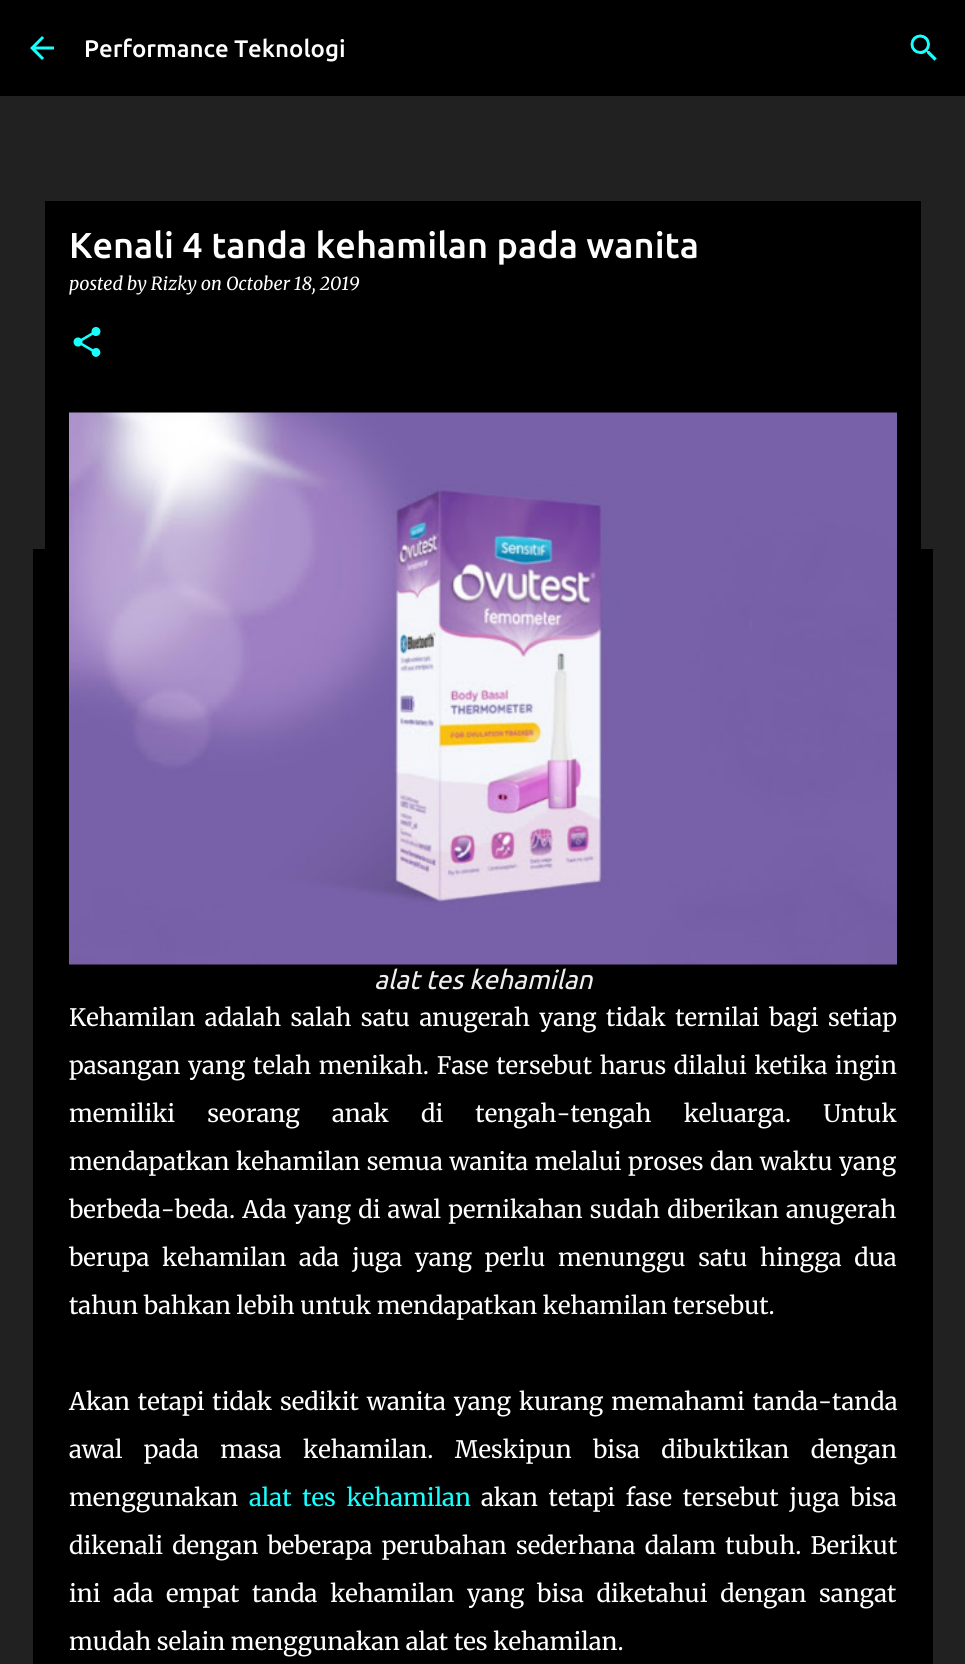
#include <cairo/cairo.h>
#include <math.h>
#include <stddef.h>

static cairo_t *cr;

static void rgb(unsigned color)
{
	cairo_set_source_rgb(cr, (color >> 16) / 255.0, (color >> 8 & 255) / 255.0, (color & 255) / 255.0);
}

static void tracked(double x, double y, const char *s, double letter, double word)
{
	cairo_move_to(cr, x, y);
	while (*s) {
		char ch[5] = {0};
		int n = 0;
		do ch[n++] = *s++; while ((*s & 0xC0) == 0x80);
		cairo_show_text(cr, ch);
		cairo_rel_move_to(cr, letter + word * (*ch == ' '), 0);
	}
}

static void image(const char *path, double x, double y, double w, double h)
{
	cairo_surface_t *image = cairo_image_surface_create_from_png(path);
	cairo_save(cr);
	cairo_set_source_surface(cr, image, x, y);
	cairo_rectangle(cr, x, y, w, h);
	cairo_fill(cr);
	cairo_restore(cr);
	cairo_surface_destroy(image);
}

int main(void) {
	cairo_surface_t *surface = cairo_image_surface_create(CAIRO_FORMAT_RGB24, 965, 1664);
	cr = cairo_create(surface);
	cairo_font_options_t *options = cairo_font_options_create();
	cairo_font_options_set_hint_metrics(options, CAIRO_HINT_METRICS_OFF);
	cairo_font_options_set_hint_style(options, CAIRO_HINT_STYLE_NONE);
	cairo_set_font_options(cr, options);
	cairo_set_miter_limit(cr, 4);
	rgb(0x212121);
	cairo_paint(cr);
	rgb(0x000000);
	cairo_rectangle(cr, 0, 0, 965, 96);
	cairo_fill(cr);
	image("img/1.png", 30, 36, 24, 24);
	image("img/2.png", 910, 34, 27, 27);
	cairo_rectangle(cr, 33, 549, 900, 1115);
	cairo_fill(cr);
	cairo_rectangle(cr, 45, 201, 876, 348);
	cairo_fill(cr);
	image("img/3.png", 73, 327, 28, 30);
	image("img/4.png", 69, 412, 828, 553);
	cairo_select_font_face(cr, "Ubuntu Medium", CAIRO_FONT_SLANT_NORMAL, CAIRO_FONT_WEIGHT_NORMAL);
	cairo_set_font_size(cr, 24);
	rgb(0xffffff);
	cairo_move_to(cr, 84, 57);
	cairo_show_text(cr, "Performance Teknologi");
	cairo_set_font_size(cr, 36);
	cairo_move_to(cr, 69, 258);
	cairo_show_text(cr, "Kenali 4 tanda kehamilan pada wanita");
	cairo_select_font_face(cr, "Merriweather", CAIRO_FONT_SLANT_ITALIC, CAIRO_FONT_WEIGHT_NORMAL);
	cairo_set_font_size(cr, 18);
	cairo_move_to(cr, 69, 290);
	cairo_show_text(cr, "posted by Rizky on October 18, 2019");
	cairo_select_font_face(cr, "Ubuntu", CAIRO_FONT_SLANT_ITALIC, CAIRO_FONT_WEIGHT_NORMAL);
	cairo_set_font_size(cr, 26.5);
	rgb(0xeeeeee);
	cairo_move_to(cr, 374, 989);
	cairo_show_text(cr, "alat tes kehamilan");
	cairo_select_font_face(cr, "Merriweather Light", CAIRO_FONT_SLANT_NORMAL, CAIRO_FONT_WEIGHT_NORMAL);
	cairo_set_font_size(cr, 24);
	rgb(0xffffff);
	tracked(69, 1026, "Kehamilan adalah salah satu anugerah yang tidak ternilai bagi setiap", 0, 3.75);
	tracked(69, 1074, "pasangan yang telah menikah. Fase tersebut harus dilalui ketika ingin", 0, 2);
	tracked(69, 1122, "memiliki seorang anak di tengah-tengah keluarga. Untuk", 0, 26.5);
	tracked(69, 1170, "mendapatkan kehamilan semua wanita melalui proses dan waktu yang", 0, 0.75);
	tracked(69, 1218, "berbeda-beda. Ada yang di awal pernikahan sudah diberikan anugerah", 0, 1.5);
	tracked(69, 1266, "berupa kehamilan ada juga yang perlu menunggu satu hingga dua", 0, 7);
	cairo_move_to(cr, 69, 1314);
	cairo_show_text(cr, "tahun bahkan lebih untuk mendapatkan kehamilan tersebut.");
	tracked(69, 1410, "Akan tetapi tidak sedikit wanita yang kurang memahami tanda-tanda", 0, 2.25);
	tracked(69, 1458, "awal pada masa kehamilan. Meskipun bisa dibuktikan dengan", 0, 15.75);
	cairo_move_to(cr, 69, 1506);
	cairo_show_text(cr, "menggunakan");
	rgb(0x18ffff);
	tracked(249, 1506, "alat tes kehamilan", 0, 5);
	rgb(0xffffff);
	tracked(481, 1506, "akan tetapi fase tersebut juga bisa", 0, 5);
	tracked(69, 1554, "dikenali dengan beberapa perubahan sederhana dalam tubuh. Berikut", 0, 3.5);
	tracked(69, 1602, "ini ada empat tanda kehamilan yang bisa diketahui dengan sangat", 0, 7);
	cairo_move_to(cr, 69, 1650);
	cairo_show_text(cr, "mudah selain menggunakan alat tes kehamilan.");
	cairo_surface_write_to_png(surface, "page.png");
	cairo_font_options_destroy(options);
	cairo_destroy(cr);
	cairo_surface_destroy(surface);
	return 0;
}
